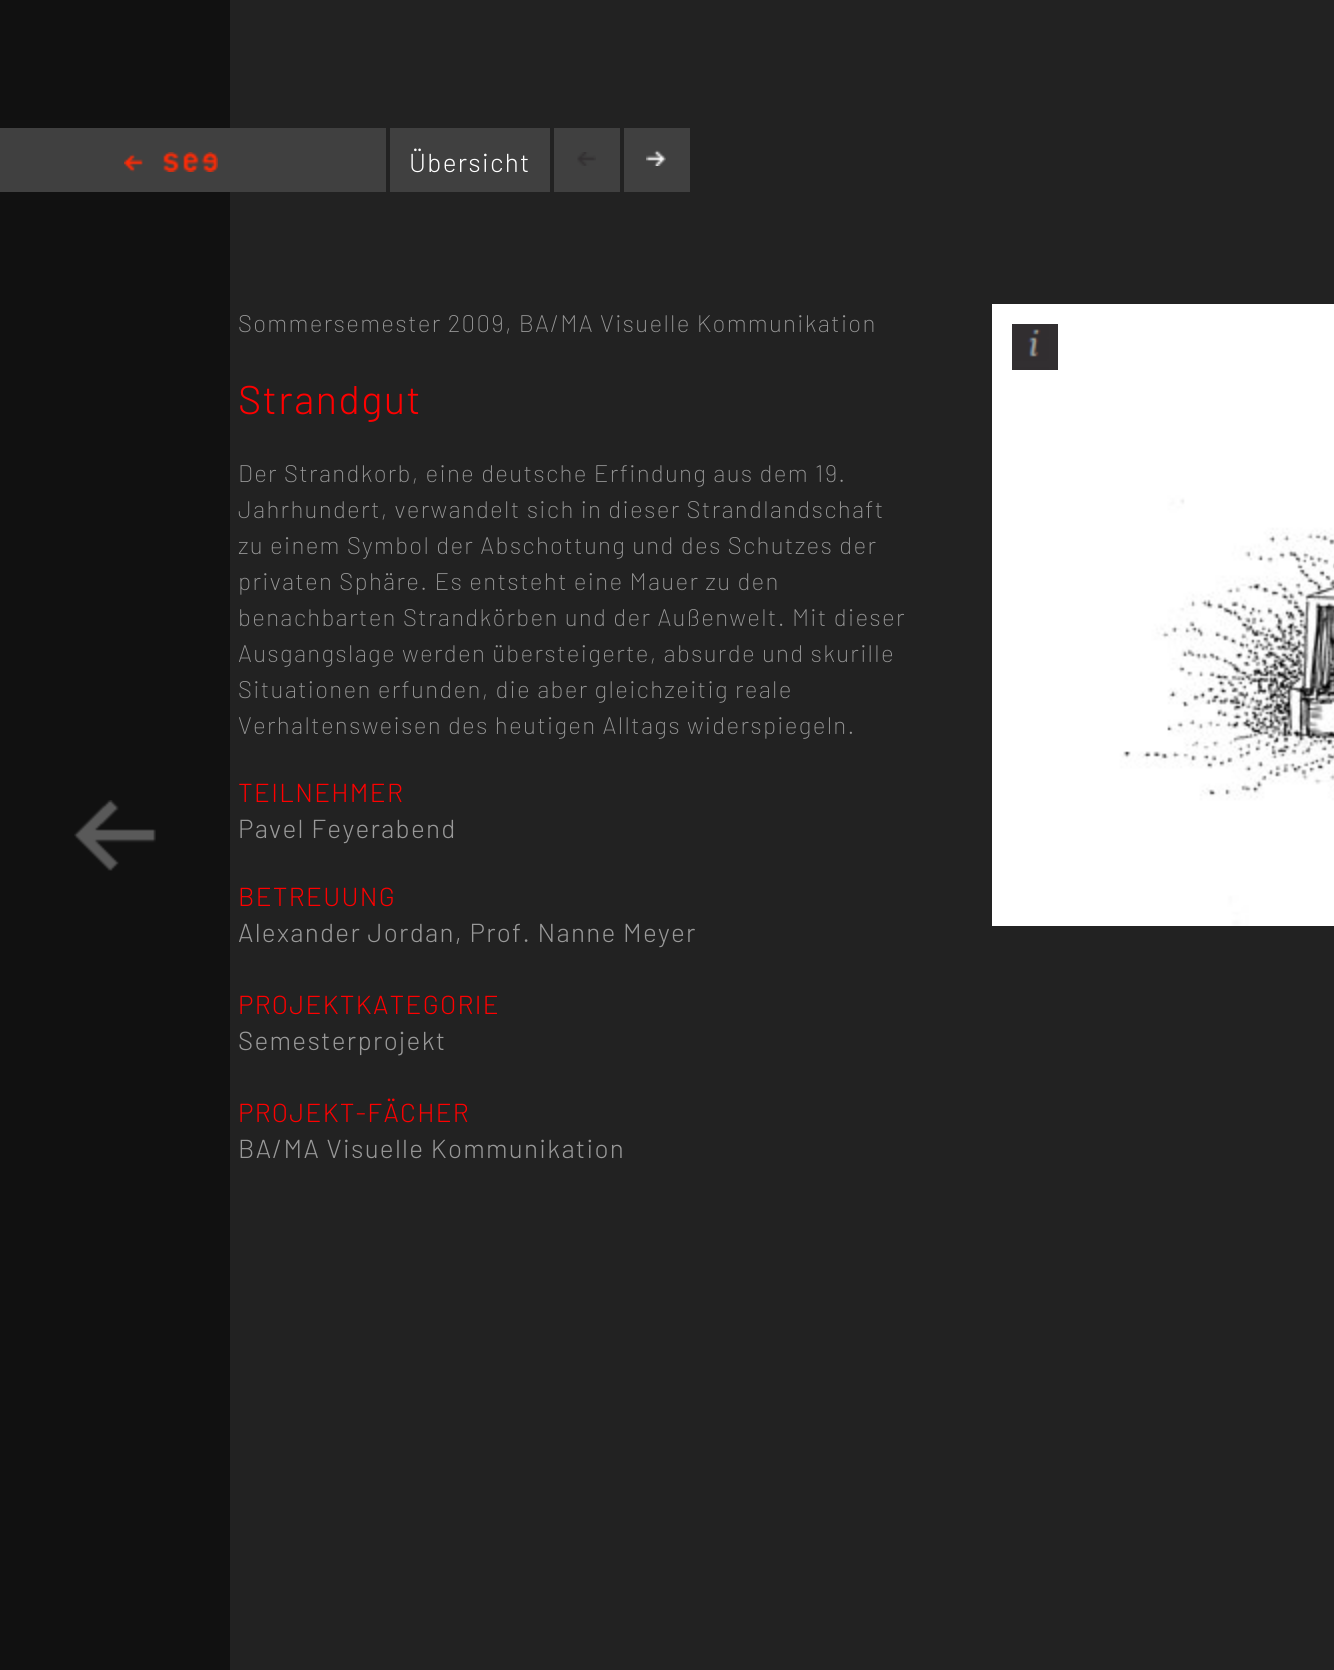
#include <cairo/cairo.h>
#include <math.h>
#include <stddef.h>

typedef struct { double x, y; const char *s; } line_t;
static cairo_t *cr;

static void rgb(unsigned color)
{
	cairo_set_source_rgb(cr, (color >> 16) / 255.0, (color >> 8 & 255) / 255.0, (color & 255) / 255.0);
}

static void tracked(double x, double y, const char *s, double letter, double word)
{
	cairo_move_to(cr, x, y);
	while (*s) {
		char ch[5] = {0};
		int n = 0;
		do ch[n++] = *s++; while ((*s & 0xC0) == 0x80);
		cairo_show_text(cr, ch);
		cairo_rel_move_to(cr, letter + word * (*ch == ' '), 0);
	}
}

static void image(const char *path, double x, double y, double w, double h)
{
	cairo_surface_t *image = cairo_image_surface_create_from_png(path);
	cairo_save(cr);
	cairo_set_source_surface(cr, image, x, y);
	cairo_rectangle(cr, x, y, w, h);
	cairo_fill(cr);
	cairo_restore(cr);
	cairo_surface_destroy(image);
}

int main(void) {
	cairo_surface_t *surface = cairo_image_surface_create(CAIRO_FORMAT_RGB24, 1334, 1670);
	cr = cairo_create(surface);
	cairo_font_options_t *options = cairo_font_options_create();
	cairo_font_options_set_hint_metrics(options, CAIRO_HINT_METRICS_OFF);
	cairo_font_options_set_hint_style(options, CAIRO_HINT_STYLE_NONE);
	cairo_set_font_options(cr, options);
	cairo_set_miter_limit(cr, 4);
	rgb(0x222222);
	cairo_paint(cr);
	rgb(0x111111);
	cairo_rectangle(cr, 0, 0, 230, 1670);
	cairo_fill(cr);
	image("img/1.png", 74, 800, 82, 71);
	rgb(0x404040);
	cairo_rectangle(cr, 0, 128, 386, 64);
	cairo_fill(cr);
	image("img/2.png", 124, 152, 94, 20);
	cairo_rectangle(cr, 390, 128, 160, 64);
	cairo_fill(cr);
	cairo_rectangle(cr, 554, 128, 66, 64);
	cairo_fill(cr);
	image("img/3.png", 577, 152, 19, 14);
	cairo_rectangle(cr, 624, 128, 66, 64);
	cairo_fill(cr);
	image("img/4.png", 646, 150, 20, 16);
	image("img/5.png", 992, 304, 342, 622);
	image("img/6.png", 1012, 324, 46, 46);
	cairo_select_font_face(cr, "Barlow Light", CAIRO_FONT_SLANT_NORMAL, CAIRO_FONT_WEIGHT_NORMAL);
	cairo_set_font_size(cr, 26);
	rgb(0xffffff);
	tracked(409, 172, "Übersicht", 1.3, 0);
	cairo_select_font_face(cr, "Barlow ExtraLight", CAIRO_FONT_SLANT_NORMAL, CAIRO_FONT_WEIGHT_NORMAL);
	cairo_set_font_size(cr, 24);
	rgb(0x999999);
	tracked(238, 332, "Sommersemester 2009, BA/MA Visuelle Kommunikation", 1.3, 0);
	cairo_select_font_face(cr, "Barlow Light", CAIRO_FONT_SLANT_NORMAL, CAIRO_FONT_WEIGHT_NORMAL);
	cairo_set_font_size(cr, 40);
	rgb(0xff0000);
	tracked(238, 414, "Strandgut", 1.3, 0);
	cairo_select_font_face(cr, "Barlow ExtraLight", CAIRO_FONT_SLANT_NORMAL, CAIRO_FONT_WEIGHT_NORMAL);
	cairo_set_font_size(cr, 24);
	rgb(0x999999);
	{
		static const line_t items[] = {
			{238, 482, "Der Strandkorb, eine deutsche Erfindung aus dem 19."},
			{238, 518, "Jahrhundert, verwandelt sich in dieser Strandlandschaft"},
			{238, 554, "zu einem Symbol der Abschottung und des Schutzes der"},
			{238, 590, "privaten Sphäre. Es entsteht eine Mauer zu den"},
			{238, 626, "benachbarten Strandkörben und der Außenwelt. Mit dieser"},
			{238, 662, "Ausgangslage werden übersteigerte, absurde und skurille"},
			{238, 698, "Situationen erfunden, die aber gleichzeitig reale"},
			{238, 734, "Verhaltensweisen des heutigen Alltags widerspiegeln."},
		};
		for (size_t i = 0; i < sizeof items / sizeof *items; i++) {
			tracked(items[i].x, items[i].y, items[i].s, 1.3, 0);
		}
	}
	cairo_select_font_face(cr, "Barlow Light", CAIRO_FONT_SLANT_NORMAL, CAIRO_FONT_WEIGHT_NORMAL);
	cairo_set_font_size(cr, 26);
	rgb(0xff0000);
	tracked(238, 802, "TEILNEHMER", 1.3, 0);
	rgb(0x999999);
	tracked(238, 838, "Pavel Feyerabend", 1.3, 0);
	rgb(0xff0000);
	tracked(238, 906, "BETREUUNG", 1.3, 0);
	rgb(0x999999);
	tracked(238, 942, "Alexander Jordan, Prof. Nanne Meyer", 1.3, 0);
	rgb(0xff0000);
	tracked(238, 1014, "PROJEKTKATEGORIE", 1.3, 0);
	rgb(0x999999);
	tracked(238, 1050, "Semesterprojekt", 1.3, 0);
	rgb(0xff0000);
	tracked(238, 1122, "PROJEKT-FÄCHER", 1.3, 0);
	rgb(0x999999);
	tracked(238, 1158, "BA/MA Visuelle Kommunikation", 1.3, 0);
	cairo_surface_write_to_png(surface, "page.png");
	cairo_font_options_destroy(options);
	cairo_destroy(cr);
	cairo_surface_destroy(surface);
	return 0;
}
